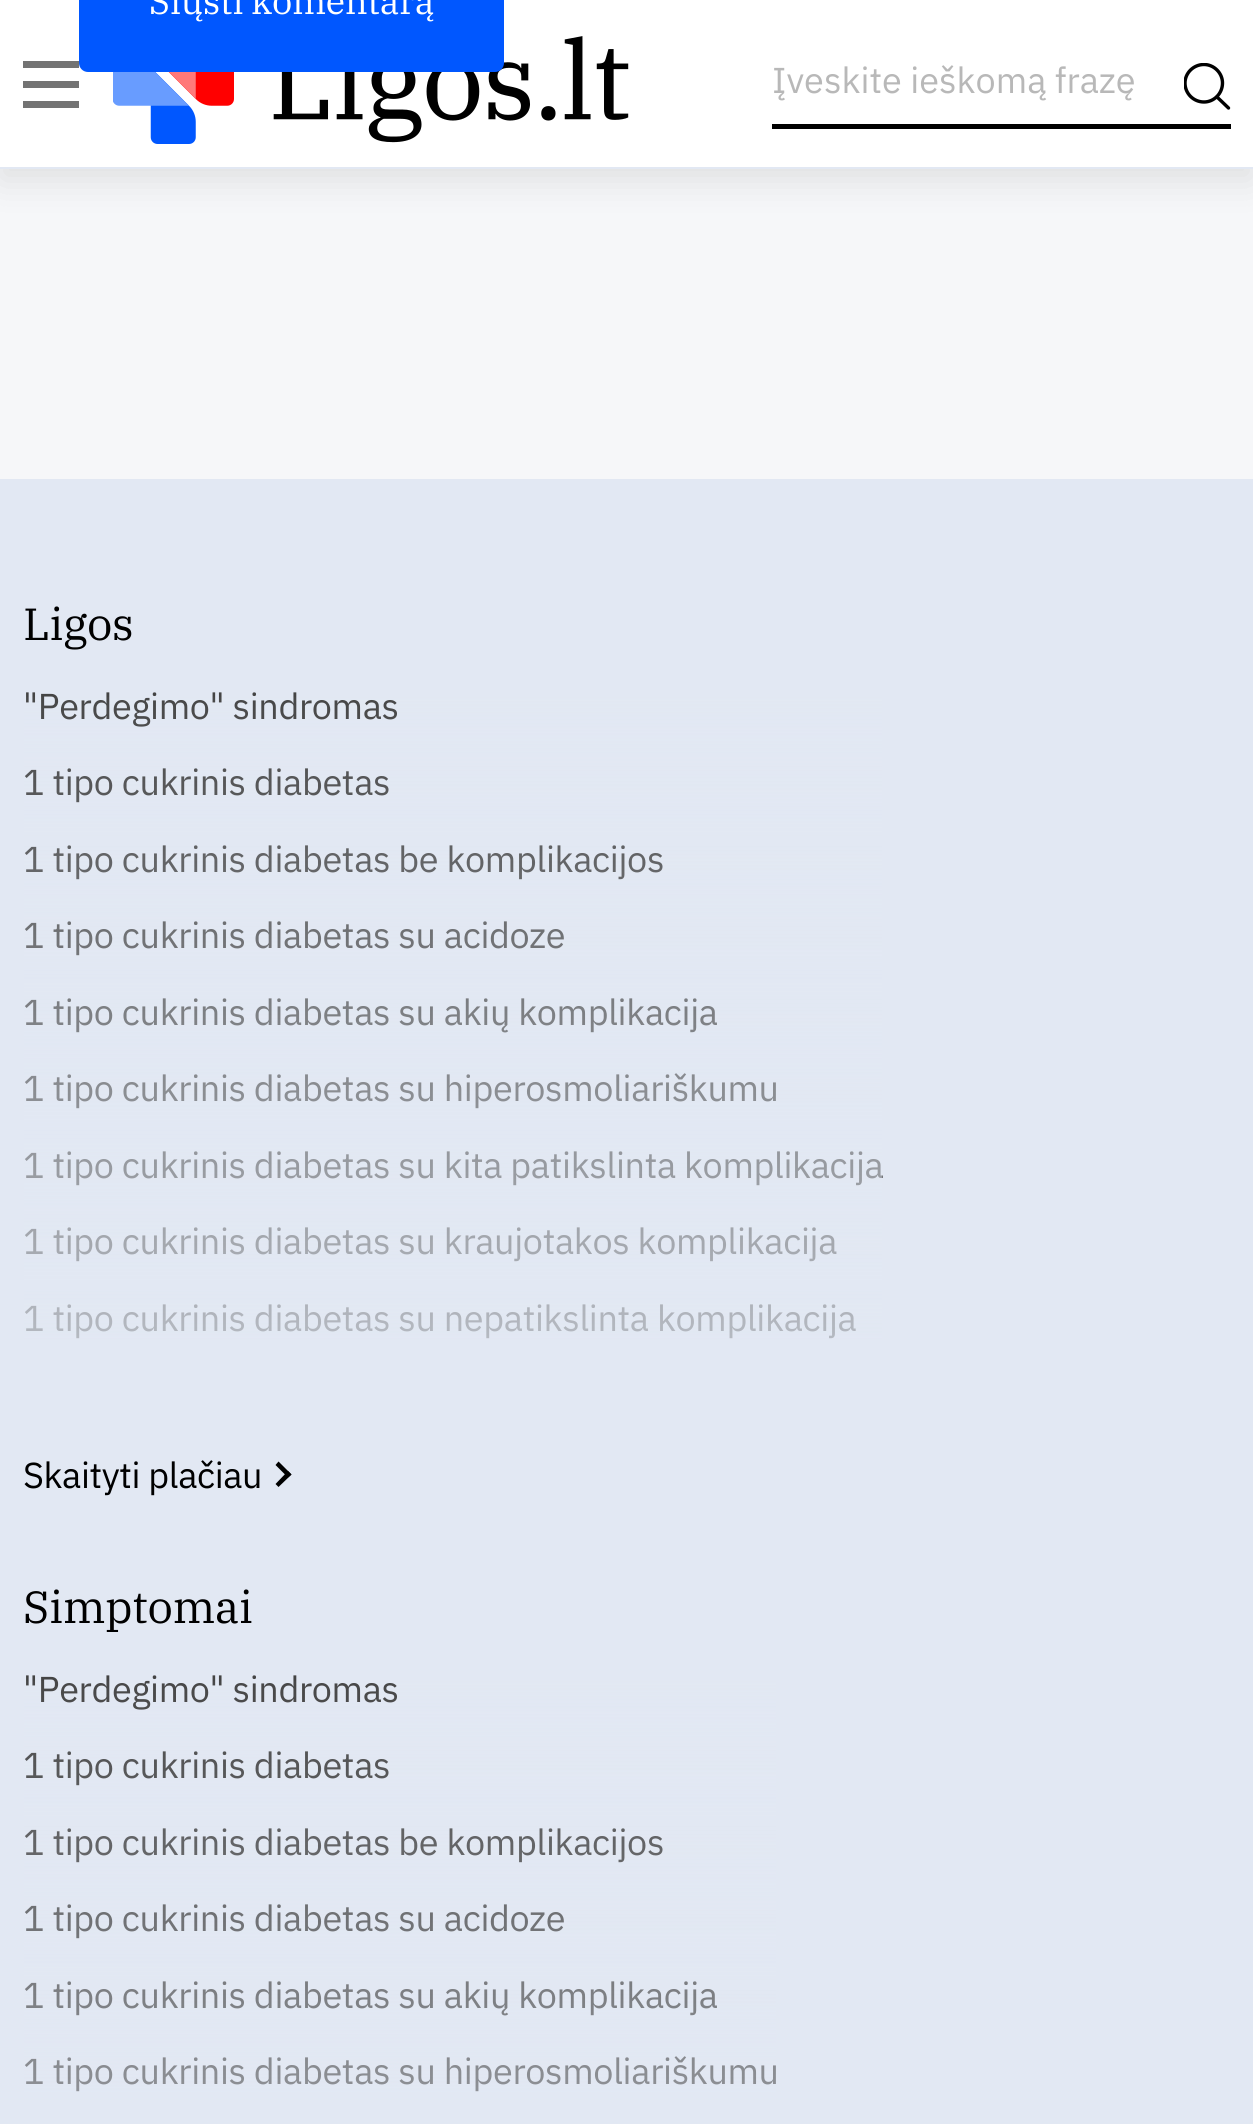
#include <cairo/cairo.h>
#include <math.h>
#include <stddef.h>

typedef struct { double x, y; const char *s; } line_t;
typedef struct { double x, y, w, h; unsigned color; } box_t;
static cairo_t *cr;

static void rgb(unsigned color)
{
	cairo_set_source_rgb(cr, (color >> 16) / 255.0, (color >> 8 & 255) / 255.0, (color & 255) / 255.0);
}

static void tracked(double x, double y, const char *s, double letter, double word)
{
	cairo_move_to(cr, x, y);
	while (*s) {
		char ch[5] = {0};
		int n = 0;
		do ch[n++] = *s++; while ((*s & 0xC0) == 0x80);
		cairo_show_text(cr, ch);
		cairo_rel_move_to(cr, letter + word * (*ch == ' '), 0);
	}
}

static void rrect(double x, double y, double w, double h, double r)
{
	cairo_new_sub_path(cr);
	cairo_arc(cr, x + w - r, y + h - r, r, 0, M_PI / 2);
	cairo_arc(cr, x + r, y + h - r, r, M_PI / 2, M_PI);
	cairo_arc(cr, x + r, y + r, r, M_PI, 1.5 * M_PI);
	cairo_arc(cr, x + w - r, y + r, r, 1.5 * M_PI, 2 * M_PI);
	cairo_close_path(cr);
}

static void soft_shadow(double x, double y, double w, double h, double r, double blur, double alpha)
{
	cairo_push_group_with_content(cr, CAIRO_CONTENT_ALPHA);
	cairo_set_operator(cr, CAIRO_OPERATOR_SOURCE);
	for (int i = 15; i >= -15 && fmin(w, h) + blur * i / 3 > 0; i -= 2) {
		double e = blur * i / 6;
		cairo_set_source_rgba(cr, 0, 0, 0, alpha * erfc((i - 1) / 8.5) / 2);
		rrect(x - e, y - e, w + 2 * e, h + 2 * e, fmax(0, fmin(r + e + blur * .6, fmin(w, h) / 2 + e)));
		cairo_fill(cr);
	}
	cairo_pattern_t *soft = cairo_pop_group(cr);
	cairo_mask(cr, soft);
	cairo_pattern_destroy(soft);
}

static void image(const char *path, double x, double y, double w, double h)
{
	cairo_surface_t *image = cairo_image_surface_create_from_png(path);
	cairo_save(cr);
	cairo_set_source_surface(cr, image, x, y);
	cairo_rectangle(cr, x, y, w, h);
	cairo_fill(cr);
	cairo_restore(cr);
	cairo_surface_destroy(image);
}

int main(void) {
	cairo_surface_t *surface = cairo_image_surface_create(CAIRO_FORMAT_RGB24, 1253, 2124);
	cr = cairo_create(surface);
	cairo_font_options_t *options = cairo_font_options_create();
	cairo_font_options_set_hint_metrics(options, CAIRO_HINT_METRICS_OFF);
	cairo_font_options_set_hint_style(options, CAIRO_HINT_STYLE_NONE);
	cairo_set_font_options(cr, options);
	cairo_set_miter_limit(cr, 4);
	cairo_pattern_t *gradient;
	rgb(0xf6f7f9);
	cairo_paint(cr);
	rgb(0x000000);
	soft_shadow(0, 11, 1253, 169, 0, 18, 0.1);
	rgb(0xffffff);
	cairo_rectangle(cr, 0, 0, 1253, 167);
	cairo_fill(cr);
	image("img/1.png", 113, 36, 516, 108);
	rgb(0x0057ff);
	rrect(80, -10, 423, 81, 8);
	cairo_fill_preserve(cr);
	cairo_stroke(cr);
	{
		static const box_t items[] = {
			{0, 167, 1253, 2, 0xe2e8f3},
			{23, 61, 56, 7, 0x737373},
			{23, 81, 56, 7, 0x737373},
			{23, 101, 56, 7, 0x737373},
			{772, 124, 459, 5, 0x000000},
		};
		for (size_t i = 0; i < sizeof items / sizeof *items; i++) {
			rgb(items[i].color);
			cairo_rectangle(cr, items[i].x, items[i].y, items[i].w, items[i].h);
			cairo_fill(cr);
		}
	}
	cairo_save(cr);
	cairo_rectangle(cr, 1184, 63, 47, 47);
	cairo_clip(cr);
	cairo_new_path(cr);
	cairo_move_to(cr, 1222.5, 83);
	cairo_curve_to(cr, 1222.5, 93.5, 1214, 102, 1204, 102);
	cairo_curve_to(cr, 1193.5, 102, 1185, 93.5, 1185, 83);
	cairo_curve_to(cr, 1185, 73, 1193.5, 64.5, 1204, 64.5);
	cairo_curve_to(cr, 1214, 64.5, 1222.5, 73, 1222.5, 83);
	cairo_close_path(cr);
	cairo_set_line_width(cr, 3.4);
	cairo_set_line_cap(cr, CAIRO_LINE_CAP_ROUND);
	cairo_set_line_join(cr, CAIRO_LINE_JOIN_ROUND);
	cairo_stroke(cr);
	cairo_restore(cr);
	cairo_new_path(cr);
	cairo_move_to(cr, 1228.5, 108);
	cairo_line_to(cr, 1217, 97);
	cairo_set_line_width(cr, 3.4);
	cairo_set_line_cap(cr, CAIRO_LINE_CAP_ROUND);
	cairo_set_line_join(cr, CAIRO_LINE_JOIN_ROUND);
	cairo_stroke(cr);
	rgb(0xe2e8f3);
	cairo_rectangle(cr, 0, 479, 1253, 1645);
	cairo_fill(cr);
	rgb(0x000000);
	cairo_new_path(cr);
	cairo_move_to(cr, 275.5, 1465);
	cairo_line_to(cr, 278.5, 1461.5);
	cairo_line_to(cr, 291.5, 1474.5);
	cairo_line_to(cr, 288, 1477.5);
	cairo_close_path(cr);
	cairo_fill(cr);
	cairo_new_path(cr);
	cairo_move_to(cr, 275.5, 1484);
	cairo_line_to(cr, 288, 1471);
	cairo_line_to(cr, 291.5, 1474.5);
	cairo_line_to(cr, 278.5, 1487);
	cairo_close_path(cr);
	cairo_fill(cr);
	cairo_select_font_face(cr, "IBM Plex Serif", CAIRO_FONT_SLANT_NORMAL, CAIRO_FONT_WEIGHT_NORMAL);
	cairo_set_font_size(cr, 36);
	rgb(0xffffff);
	tracked(149, 14, "Siųsti komentarą", -0.35, 0);
	cairo_select_font_face(cr, "IBM Plex Sans", CAIRO_FONT_SLANT_NORMAL, CAIRO_FONT_WEIGHT_NORMAL);
	rgb(0xb8b8b8);
	cairo_move_to(cr, 772, 93);
	cairo_show_text(cr, "Įveskite ieškomą frazę");
	cairo_select_font_face(cr, "IBM Plex Serif", CAIRO_FONT_SLANT_NORMAL, CAIRO_FONT_WEIGHT_NORMAL);
	cairo_set_font_size(cr, 45);
	rgb(0x000000);
	tracked(23, 640, "Ligos", -0.5, 0);
	cairo_select_font_face(cr, "IBM Plex Sans", CAIRO_FONT_SLANT_NORMAL, CAIRO_FONT_WEIGHT_NORMAL);
	cairo_set_font_size(cr, 36);
	rgb(0x444444);
	{
		static const line_t items[] = {
			{23, 719, "\"Perdegimo\" sindromas"},
			{23, 795, "1 tipo cukrinis diabetas"},
			{23, 872, "1 tipo cukrinis diabetas be komplikacijos"},
			{23, 948, "1 tipo cukrinis diabetas su acidoze"},
			{23, 1025, "1 tipo cukrinis diabetas su akių komplikacija"},
			{23, 1101, "1 tipo cukrinis diabetas su hiperosmoliariškumu"},
			{23, 1178, "1 tipo cukrinis diabetas su kita patikslinta komplikacija"},
			{23, 1254, "1 tipo cukrinis diabetas su kraujotakos komplikacija"},
			{23, 1331, "1 tipo cukrinis diabetas su nepatikslinta komplikacija"},
		};
		for (size_t i = 0; i < sizeof items / sizeof *items; i++) {
			tracked(items[i].x, items[i].y, items[i].s, -0.35, 0);
		}
	}
	gradient = cairo_pattern_create_linear(627, 1420, 627, 677);
	cairo_pattern_add_color_stop_rgba(gradient, 0, 0.886, 0.91, 0.953, 0.8);
	cairo_pattern_add_color_stop_rgba(gradient, 1, 0.886, 0.91, 0.953, 0);
	cairo_set_source(cr, gradient);
	cairo_pattern_destroy(gradient);
	cairo_rectangle(cr, 24, 697, 858, 642);
	cairo_fill(cr);
	rgb(0x000000);
	tracked(23, 1488, "Skaityti plačiau", -0.4, 0);
	cairo_select_font_face(cr, "IBM Plex Serif", CAIRO_FONT_SLANT_NORMAL, CAIRO_FONT_WEIGHT_NORMAL);
	cairo_set_font_size(cr, 45);
	tracked(23, 1623, "Simptomai", -0.5, 0);
	cairo_select_font_face(cr, "IBM Plex Sans", CAIRO_FONT_SLANT_NORMAL, CAIRO_FONT_WEIGHT_NORMAL);
	cairo_set_font_size(cr, 36);
	rgb(0x444444);
	{
		static const line_t items[] = {
			{23, 1702, "\"Perdegimo\" sindromas"},
			{23, 1778, "1 tipo cukrinis diabetas"},
			{23, 1855, "1 tipo cukrinis diabetas be komplikacijos"},
			{23, 1931, "1 tipo cukrinis diabetas su acidoze"},
			{23, 2008, "1 tipo cukrinis diabetas su akių komplikacija"},
			{23, 2084, "1 tipo cukrinis diabetas su hiperosmoliariškumu"},
		};
		for (size_t i = 0; i < sizeof items / sizeof *items; i++) {
			tracked(items[i].x, items[i].y, items[i].s, -0.35, 0);
		}
	}
	gradient = cairo_pattern_create_linear(627, 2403, 627, 1661);
	cairo_pattern_add_color_stop_rgba(gradient, 0, 0.886, 0.91, 0.953, 0.8);
	cairo_pattern_add_color_stop_rgba(gradient, 1, 0.886, 0.91, 0.953, 0);
	cairo_set_source(cr, gradient);
	cairo_pattern_destroy(gradient);
	cairo_rectangle(cr, 24, 1681, 752, 411);
	cairo_fill(cr);
	cairo_surface_write_to_png(surface, "page.png");
	cairo_font_options_destroy(options);
	cairo_destroy(cr);
	cairo_surface_destroy(surface);
	return 0;
}
